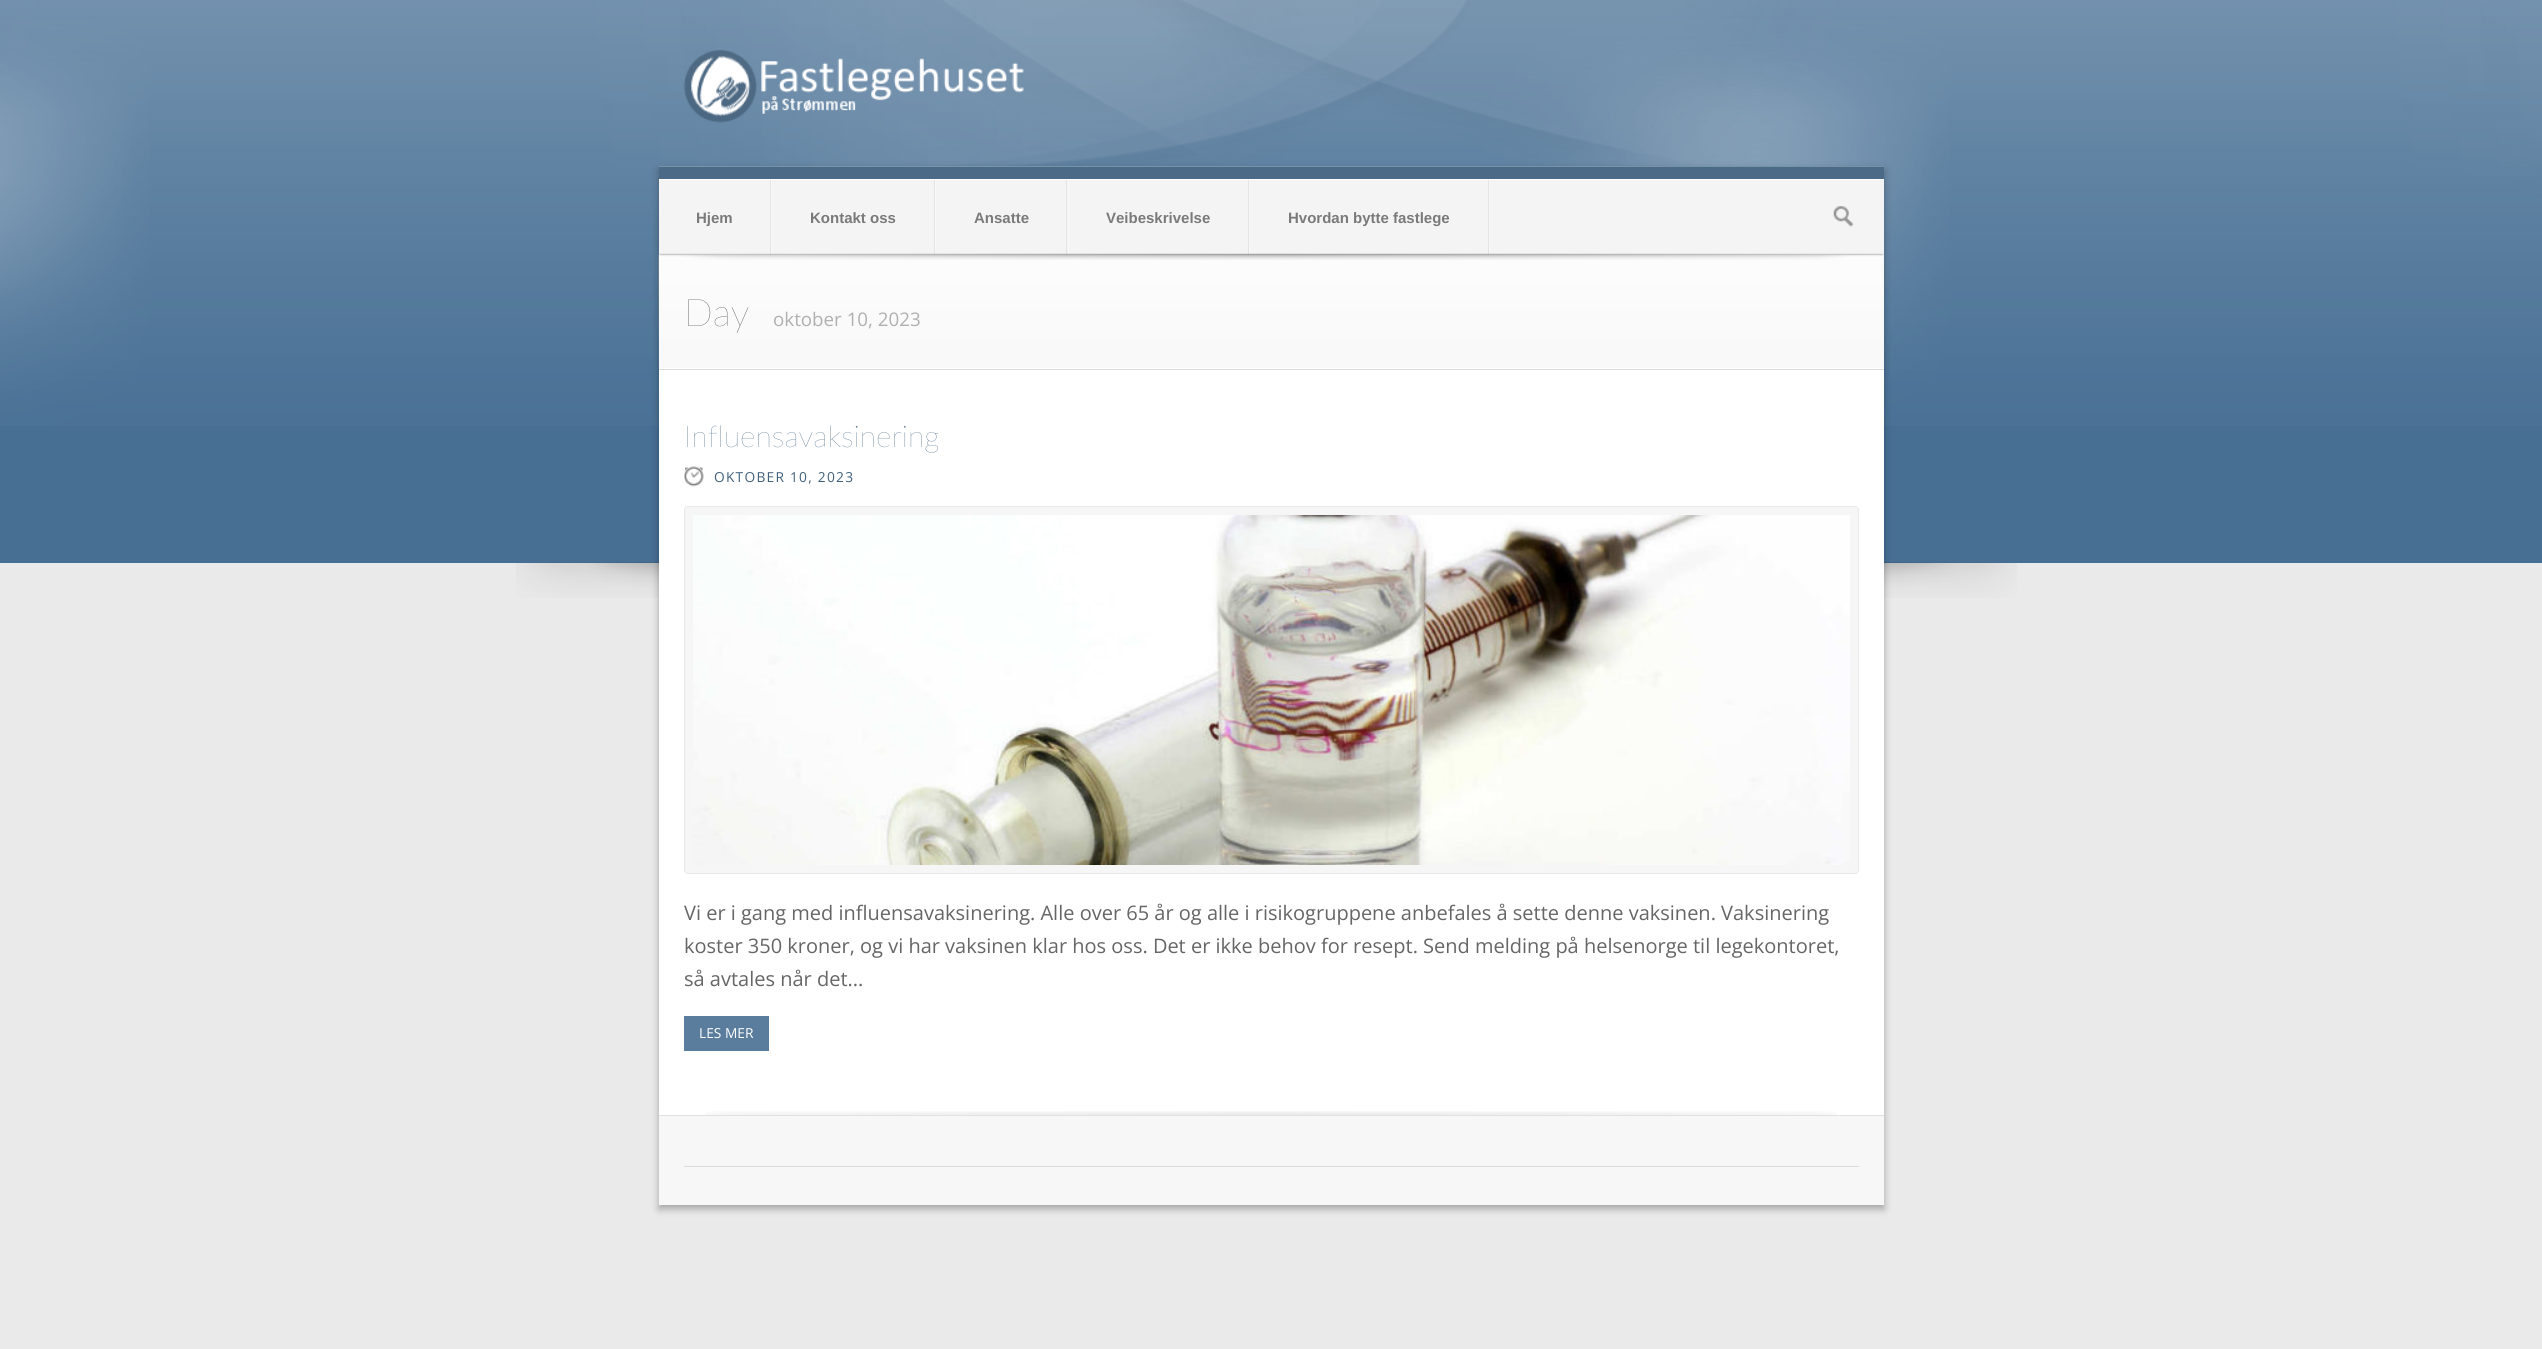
#include <cairo/cairo.h>
#include <math.h>
#include <stddef.h>

typedef struct { double x, y; const char *s; } line_t;
typedef struct { double x, y, w, h; unsigned color; } box_t;
static cairo_t *cr;

static void rgb(unsigned color)
{
	cairo_set_source_rgb(cr, (color >> 16) / 255.0, (color >> 8 & 255) / 255.0, (color & 255) / 255.0);
}

static void tracked(double x, double y, const char *s, double letter, double word)
{
	cairo_move_to(cr, x, y);
	while (*s) {
		char ch[5] = {0};
		int n = 0;
		do ch[n++] = *s++; while ((*s & 0xC0) == 0x80);
		cairo_show_text(cr, ch);
		cairo_rel_move_to(cr, letter + word * (*ch == ' '), 0);
	}
}

static void rrect(double x, double y, double w, double h, double r)
{
	cairo_new_sub_path(cr);
	cairo_arc(cr, x + w - r, y + h - r, r, 0, M_PI / 2);
	cairo_arc(cr, x + r, y + h - r, r, M_PI / 2, M_PI);
	cairo_arc(cr, x + r, y + r, r, M_PI, 1.5 * M_PI);
	cairo_arc(cr, x + w - r, y + r, r, 1.5 * M_PI, 2 * M_PI);
	cairo_close_path(cr);
}

static void soft_shadow(double x, double y, double w, double h, double r, double blur, double alpha)
{
	cairo_push_group_with_content(cr, CAIRO_CONTENT_ALPHA);
	cairo_set_operator(cr, CAIRO_OPERATOR_SOURCE);
	for (int i = 15; i >= -15 && fmin(w, h) + blur * i / 3 > 0; i -= 2) {
		double e = blur * i / 6;
		cairo_set_source_rgba(cr, 0, 0, 0, alpha * erfc((i - 1) / 8.5) / 2);
		rrect(x - e, y - e, w + 2 * e, h + 2 * e, fmax(0, fmin(r + e + blur * .6, fmin(w, h) / 2 + e)));
		cairo_fill(cr);
	}
	cairo_pattern_t *soft = cairo_pop_group(cr);
	cairo_mask(cr, soft);
	cairo_pattern_destroy(soft);
}

static void image(const char *path, double x, double y, double w, double h)
{
	cairo_surface_t *image = cairo_image_surface_create_from_png(path);
	cairo_save(cr);
	cairo_set_source_surface(cr, image, x, y);
	cairo_rectangle(cr, x, y, w, h);
	cairo_fill(cr);
	cairo_restore(cr);
	cairo_surface_destroy(image);
}

int main(void) {
	cairo_surface_t *surface = cairo_image_surface_create(CAIRO_FORMAT_RGB24, 2542, 1349);
	cr = cairo_create(surface);
	cairo_font_options_t *options = cairo_font_options_create();
	cairo_font_options_set_hint_metrics(options, CAIRO_HINT_METRICS_OFF);
	cairo_font_options_set_hint_style(options, CAIRO_HINT_STYLE_NONE);
	cairo_set_font_options(cr, options);
	cairo_set_miter_limit(cr, 4);
	rgb(0xeaeaea);
	cairo_paint(cr);
	rgb(0x476f94);
	cairo_rectangle(cr, 0, 0, 2542, 563);
	cairo_fill(cr);
	image("img/1.png", 0, 0, 2542, 426);
	image("img/2.png", 683, 50, 341, 73);
	image("img/3.png", 516, 562, 1501, 36);
	rgb(0x000000);
	soft_shadow(659, 170, 1225, 1039, 0, 4, 0.3);
	{
		static const box_t items[] = {
			{659, 370, 1225, 745, 0xffffff},
			{659, 167, 1225, 12, 0x4b6a88},
			{659, 166, 1225, 1, 0x7594a8},
			{659, 179, 1225, 1, 0xffffff},
			{659, 180, 1225, 75, 0xf4f4f4},
			{1489, 180, 1, 75, 0xf8f8f8},
			{770, 180, 1, 75, 0xe4e4e4},
			{934, 180, 1, 75, 0xe4e4e4},
			{771, 180, 1, 75, 0xf8f8f8},
			{1066, 180, 1, 75, 0xe4e4e4},
			{935, 180, 1, 75, 0xf8f8f8},
			{1248, 180, 1, 75, 0xe4e4e4},
			{1068, 180, 1, 75, 0xf8f8f8},
			{1488, 180, 1, 75, 0xe4e4e4},
			{1249, 180, 1, 75, 0xf8f8f8},
			{659, 255, 1225, 113, 0xf8f8f8},
		};
		for (size_t i = 0; i < sizeof items / sizeof *items; i++) {
			rgb(items[i].color);
			cairo_rectangle(cr, items[i].x, items[i].y, items[i].w, items[i].h);
			cairo_fill(cr);
		}
	}
	image("img/6.png", 658, 255, 1225, 112);
	image("img/4.png", 658, 253, 1226, 7);
	image("img/5.png", 1833, 206, 21, 21);
	rgb(0xdcdcdc);
	cairo_rectangle(cr, 659, 369, 1225, 1);
	cairo_fill(cr);
	rgb(0xffffff);
	cairo_rectangle(cr, 659, 368, 1225, 1);
	cairo_fill(cr);
	image("img/7.png", 684, 466, 20, 21);
	rgb(0xf6f6f6);
	rrect(684.5, 506.5, 1174, 367, 3.5);
	cairo_fill_preserve(cr);
	rgb(0xe9e9e9);
	cairo_set_line_width(cr, 1);
	cairo_stroke(cr);
	image("img/8.png", 693, 515, 1157, 350);
	rgb(0x5b7d9d);
	cairo_rectangle(cr, 684, 1016, 85, 35);
	cairo_fill(cr);
	image("img/9.png", 706, 1111, 1131, 4);
	{
		static const box_t items[] = {
			{659, 1116, 1225, 89, 0xf7f7f7},
			{659, 1115, 1225, 1, 0xe1e1e1},
			{684, 1166, 1175, 1, 0xdcdcdc},
		};
		for (size_t i = 0; i < sizeof items / sizeof *items; i++) {
			rgb(items[i].color);
			cairo_rectangle(cr, items[i].x, items[i].y, items[i].w, items[i].h);
			cairo_fill(cr);
		}
	}
	cairo_select_font_face(cr, "Liberation Sans", CAIRO_FONT_SLANT_NORMAL, CAIRO_FONT_WEIGHT_BOLD);
	cairo_set_font_size(cr, 15);
	rgb(0x7a7a7a);
	{
		static const line_t items[] = {
			{696, 223, "Hjem"},
			{810, 223, "Kontakt oss"},
			{974, 223, "Ansatte"},
			{1106, 223, "Veibeskrivelse"},
			{1288, 223, "Hvordan bytte fastlege"},
		};
		for (size_t i = 0; i < sizeof items / sizeof *items; i++) {
			cairo_move_to(cr, items[i].x, items[i].y);
			cairo_show_text(cr, items[i].s);
		}
	}
	cairo_select_font_face(cr, "Lato ExtraLight", CAIRO_FONT_SLANT_NORMAL, CAIRO_FONT_WEIGHT_NORMAL);
	cairo_set_font_size(cr, 38);
	rgb(0x5c5c5c);
	cairo_move_to(cr, 684, 326);
	cairo_show_text(cr, "Day");
	cairo_select_font_face(cr, "Open Sans", CAIRO_FONT_SLANT_NORMAL, CAIRO_FONT_WEIGHT_NORMAL);
	cairo_set_font_size(cr, 18.75);
	rgb(0xb0b0b0);
	cairo_move_to(cr, 773, 326);
	cairo_show_text(cr, "oktober 10, 2023");
	cairo_select_font_face(cr, "Lato ExtraLight", CAIRO_FONT_SLANT_NORMAL, CAIRO_FONT_WEIGHT_NORMAL);
	cairo_set_font_size(cr, 30);
	rgb(0x41607d);
	cairo_move_to(cr, 684, 447);
	cairo_show_text(cr, "Influensavaksinering");
	cairo_select_font_face(cr, "Open Sans", CAIRO_FONT_SLANT_NORMAL, CAIRO_FONT_WEIGHT_NORMAL);
	cairo_set_font_size(cr, 13.75);
	tracked(714, 482, "OKTOBER 10, 2023", 1.25, 0);
	cairo_set_font_size(cr, 20);
	rgb(0x666666);
	{
		static const line_t items[] = {
			{684, 920, "Vi er i gang med influensavaksinering. Alle over 65 år og alle i risikogruppene anbefales å sette denne vaksinen. Vaksinering"},
			{684, 953, "koster 350 kroner, og vi har vaksinen klar hos oss. Det er ikke behov for resept. Send melding på helsenorge til legekontoret,"},
			{684, 986, "så avtales når det..."},
		};
		for (size_t i = 0; i < sizeof items / sizeof *items; i++) {
			cairo_move_to(cr, items[i].x, items[i].y);
			cairo_show_text(cr, items[i].s);
		}
	}
	cairo_set_font_size(cr, 13.75);
	rgb(0xffffff);
	cairo_move_to(cr, 699, 1038);
	cairo_show_text(cr, "LES MER");
	cairo_surface_write_to_png(surface, "page.png");
	cairo_font_options_destroy(options);
	cairo_destroy(cr);
	cairo_surface_destroy(surface);
	return 0;
}
